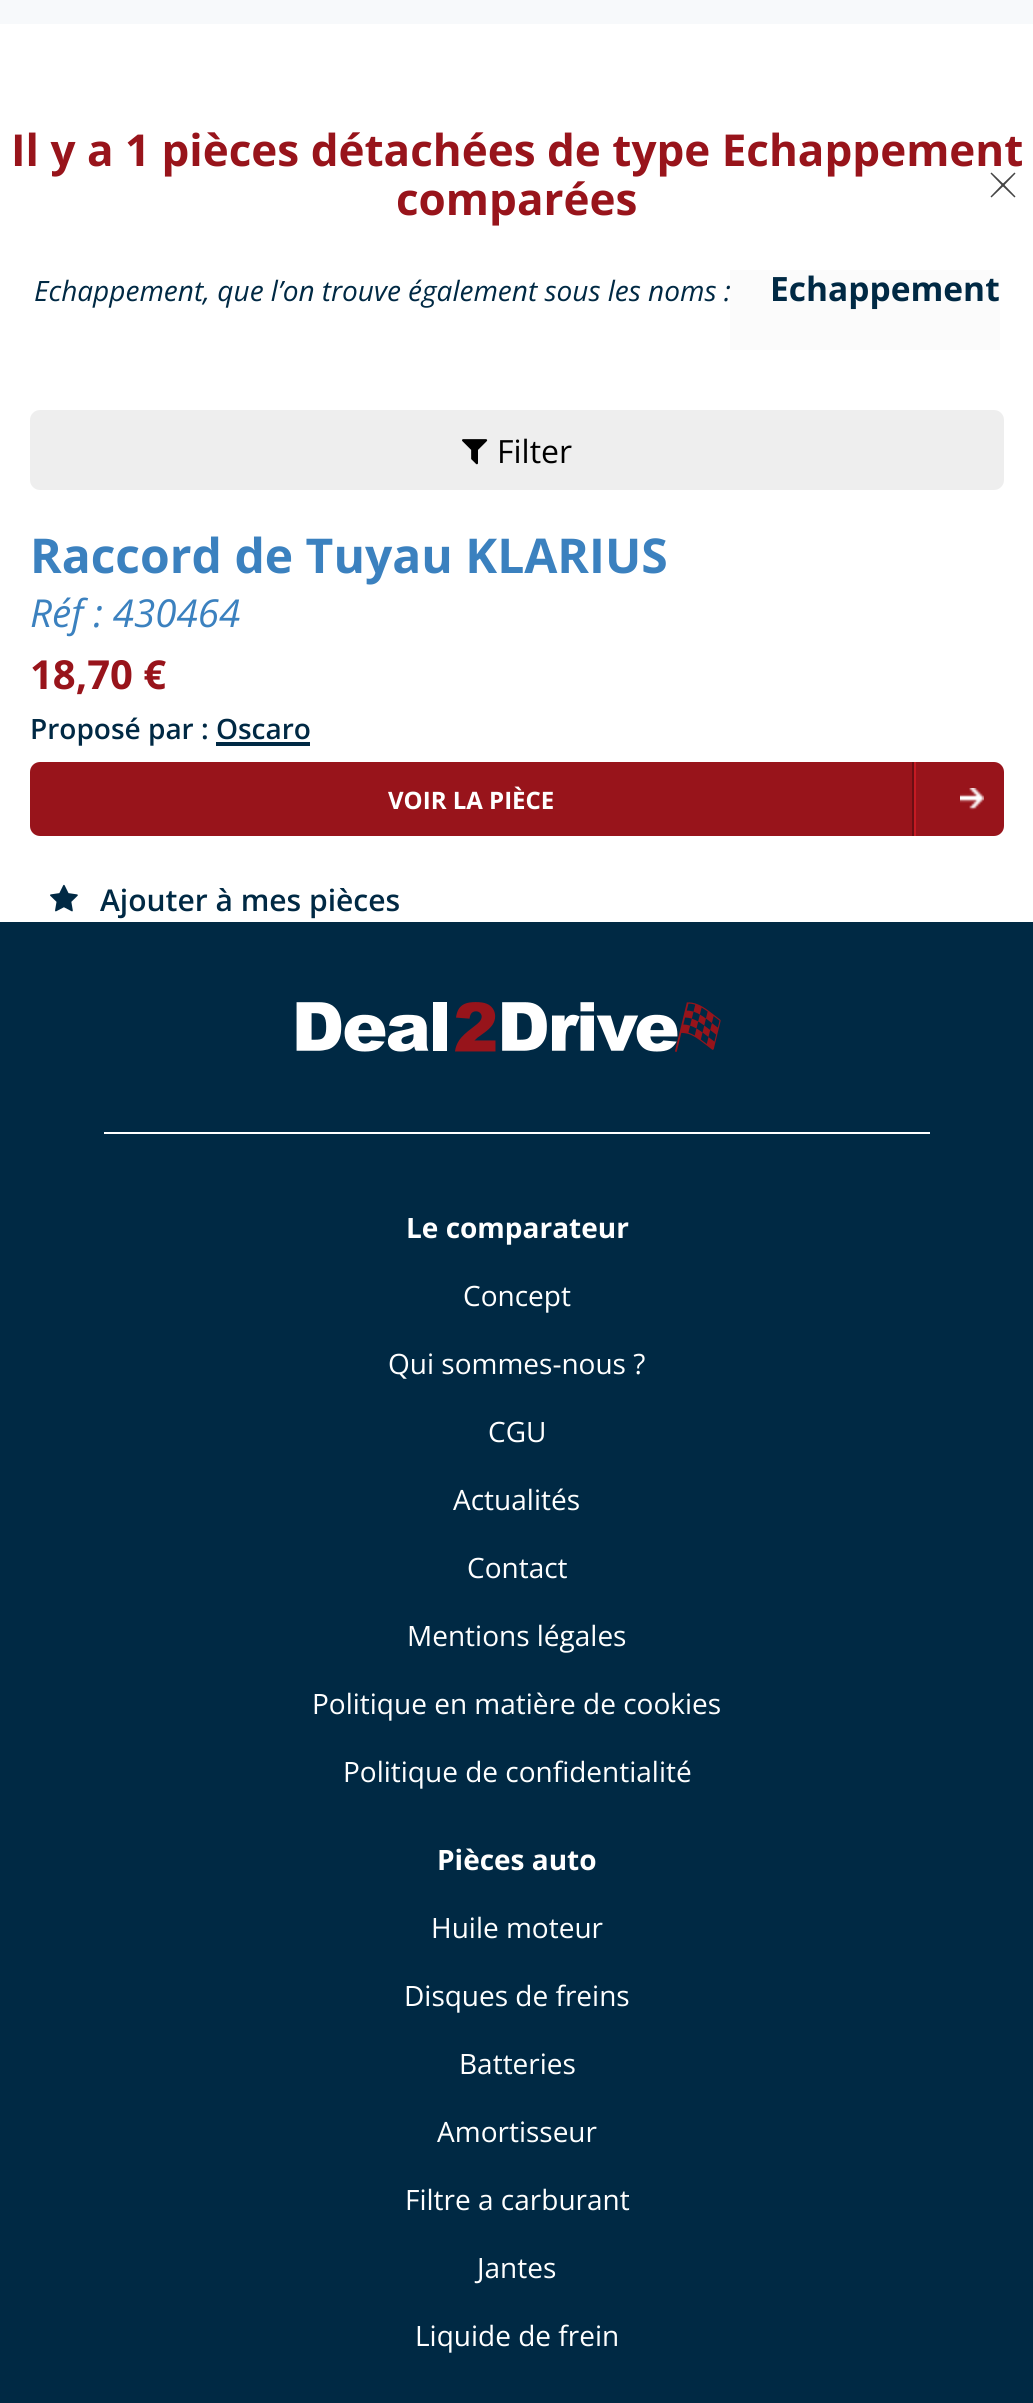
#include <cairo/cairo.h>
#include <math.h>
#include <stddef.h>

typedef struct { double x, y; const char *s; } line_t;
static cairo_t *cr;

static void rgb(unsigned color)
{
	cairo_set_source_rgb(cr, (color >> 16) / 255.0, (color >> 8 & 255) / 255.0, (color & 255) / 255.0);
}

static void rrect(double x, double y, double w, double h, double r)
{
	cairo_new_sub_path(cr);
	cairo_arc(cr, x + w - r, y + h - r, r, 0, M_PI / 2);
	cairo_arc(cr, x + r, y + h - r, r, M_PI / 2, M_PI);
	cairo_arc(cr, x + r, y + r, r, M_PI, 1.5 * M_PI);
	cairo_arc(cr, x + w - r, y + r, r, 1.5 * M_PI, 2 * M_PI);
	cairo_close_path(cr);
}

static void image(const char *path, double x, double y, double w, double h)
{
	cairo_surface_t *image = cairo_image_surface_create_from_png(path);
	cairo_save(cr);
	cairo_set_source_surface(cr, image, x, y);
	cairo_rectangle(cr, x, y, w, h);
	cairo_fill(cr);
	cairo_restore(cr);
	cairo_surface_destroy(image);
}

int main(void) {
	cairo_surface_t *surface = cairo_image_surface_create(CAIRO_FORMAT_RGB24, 1033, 2403);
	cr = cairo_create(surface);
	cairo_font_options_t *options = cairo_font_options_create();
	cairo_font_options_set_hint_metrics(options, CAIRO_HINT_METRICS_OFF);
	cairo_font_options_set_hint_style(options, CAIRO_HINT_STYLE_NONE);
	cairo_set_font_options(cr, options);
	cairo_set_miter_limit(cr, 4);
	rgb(0xffffff);
	cairo_paint(cr);
	rgb(0xf7f9fb);
	cairo_rectangle(cr, 0, 0, 1033, 24);
	cairo_fill(cr);
	rgb(0xfbfbfb);
	cairo_rectangle(cr, 730, 270, 270, 80);
	cairo_fill(cr);
	rgb(0xeeeeee);
	rrect(30, 410, 974, 80, 10);
	cairo_fill(cr);
	image("img/1.png", 462, 439, 26, 26);
	rgb(0x002944);
	cairo_rectangle(cr, 216, 742, 94, 4);
	cairo_fill(cr);
	rgb(0x98141b);
	rrect(30, 762, 974, 74, 10);
	cairo_fill(cr);
	rgb(0xc51a23);
	cairo_rectangle(cr, 914, 762, 2, 74);
	cairo_fill(cr);
	rgb(0x6b0e13);
	cairo_rectangle(cr, 912, 762, 2, 74);
	cairo_fill(cr);
	image("img/2.png", 960, 788, 24, 22);
	image("img/3.png", 50, 884, 28, 28);
	rgb(0x002944);
	cairo_rectangle(cr, 0, 922, 1033, 1481);
	cairo_fill(cr);
	image("img/4.png", 296, 1002, 425, 50);
	rgb(0xffffff);
	cairo_rectangle(cr, 104, 1132, 826, 2);
	cairo_fill(cr);
	cairo_select_font_face(cr, "Open Sans", CAIRO_FONT_SLANT_NORMAL, CAIRO_FONT_WEIGHT_BOLD);
	cairo_set_font_size(cr, 44);
	rgb(0x98141b);
	cairo_move_to(cr, 11, 166);
	cairo_show_text(cr, "Il y a 1 pièces détachées de type Echappement");
	cairo_move_to(cr, 396, 215);
	cairo_show_text(cr, "comparées");
	cairo_select_font_face(cr, "Open Sans", CAIRO_FONT_SLANT_ITALIC, CAIRO_FONT_WEIGHT_NORMAL);
	cairo_set_font_size(cr, 28);
	rgb(0x002944);
	cairo_move_to(cr, 34, 301);
	cairo_show_text(cr, "Echappement, que l’on trouve également sous les noms :");
	cairo_select_font_face(cr, "Open Sans", CAIRO_FONT_SLANT_NORMAL, CAIRO_FONT_WEIGHT_BOLD);
	cairo_set_font_size(cr, 33.5);
	cairo_move_to(cr, 770, 301);
	cairo_show_text(cr, "Echappement");
	rgb(0x454545);
	cairo_new_path(cr);
	cairo_move_to(cr, 1014.5, 172.5);
	cairo_line_to(cr, 1015.5, 173.5);
	cairo_line_to(cr, 1003, 186.5);
	cairo_line_to(cr, 1001.5, 185);
	cairo_close_path(cr);
	cairo_fill(cr);
	cairo_new_path(cr);
	cairo_move_to(cr, 991.5, 172.5);
	cairo_line_to(cr, 1004.5, 185);
	cairo_line_to(cr, 1003, 186.5);
	cairo_line_to(cr, 990.5, 173.5);
	cairo_close_path(cr);
	cairo_fill(cr);
	cairo_new_path(cr);
	cairo_move_to(cr, 1003, 183.5);
	cairo_line_to(cr, 1015.5, 196.5);
	cairo_line_to(cr, 1014.5, 197.5);
	cairo_line_to(cr, 1001.5, 185);
	cairo_close_path(cr);
	cairo_fill(cr);
	cairo_new_path(cr);
	cairo_move_to(cr, 1003, 183.5);
	cairo_line_to(cr, 1004.5, 185);
	cairo_line_to(cr, 991.5, 197.5);
	cairo_line_to(cr, 990.5, 196.5);
	cairo_close_path(cr);
	cairo_fill(cr);
	cairo_select_font_face(cr, "Open Sans", CAIRO_FONT_SLANT_NORMAL, CAIRO_FONT_WEIGHT_NORMAL);
	cairo_set_font_size(cr, 32);
	rgb(0x000000);
	cairo_move_to(cr, 497, 463);
	cairo_show_text(cr, "Filter");
	cairo_select_font_face(cr, "Open Sans", CAIRO_FONT_SLANT_NORMAL, CAIRO_FONT_WEIGHT_BOLD);
	cairo_set_font_size(cr, 48);
	rgb(0x3b81bf);
	cairo_move_to(cr, 30, 573);
	cairo_show_text(cr, "Raccord de Tuyau KLARIUS");
	cairo_select_font_face(cr, "Open Sans", CAIRO_FONT_SLANT_ITALIC, CAIRO_FONT_WEIGHT_NORMAL);
	cairo_set_font_size(cr, 38.5);
	cairo_move_to(cr, 30, 627);
	cairo_show_text(cr, "Réf : 430464");
	cairo_select_font_face(cr, "Open Sans", CAIRO_FONT_SLANT_NORMAL, CAIRO_FONT_WEIGHT_BOLD);
	cairo_set_font_size(cr, 40);
	rgb(0x98141b);
	cairo_move_to(cr, 30, 689);
	cairo_show_text(cr, "18,70 €");
	cairo_select_font_face(cr, "Open Sans SemiBold", CAIRO_FONT_SLANT_NORMAL, CAIRO_FONT_WEIGHT_NORMAL);
	cairo_set_font_size(cr, 28);
	rgb(0x002944);
	cairo_move_to(cr, 30, 739);
	cairo_show_text(cr, "Proposé par : Oscaro");
	cairo_select_font_face(cr, "Open Sans", CAIRO_FONT_SLANT_NORMAL, CAIRO_FONT_WEIGHT_BOLD);
	cairo_set_font_size(cr, 24);
	rgb(0xffffff);
	cairo_move_to(cr, 388, 809);
	cairo_show_text(cr, "VOIR LA PIÈCE");
	cairo_select_font_face(cr, "Open Sans SemiBold", CAIRO_FONT_SLANT_NORMAL, CAIRO_FONT_WEIGHT_NORMAL);
	cairo_set_font_size(cr, 30);
	rgb(0x002944);
	cairo_move_to(cr, 100, 911);
	cairo_show_text(cr, "Ajouter à mes pièces");
	cairo_select_font_face(cr, "Open Sans", CAIRO_FONT_SLANT_NORMAL, CAIRO_FONT_WEIGHT_BOLD);
	cairo_set_font_size(cr, 28);
	rgb(0xffffff);
	cairo_move_to(cr, 406, 1238);
	cairo_show_text(cr, "Le comparateur");
	cairo_select_font_face(cr, "Open Sans", CAIRO_FONT_SLANT_NORMAL, CAIRO_FONT_WEIGHT_NORMAL);
	{
		static const line_t items[] = {
			{463, 1306, "Concept"},
			{388, 1374, "Qui sommes-nous ?"},
			{488, 1442, "CGU"},
			{453, 1510, "Actualités"},
			{467, 1578, "Contact"},
			{407, 1646, "Mentions légales"},
			{312, 1714, "Politique en matière de cookies"},
			{343, 1782, "Politique de confidentialité"},
		};
		for (size_t i = 0; i < sizeof items / sizeof *items; i++) {
			cairo_move_to(cr, items[i].x, items[i].y);
			cairo_show_text(cr, items[i].s);
		}
	}
	cairo_select_font_face(cr, "Open Sans", CAIRO_FONT_SLANT_NORMAL, CAIRO_FONT_WEIGHT_BOLD);
	cairo_move_to(cr, 437, 1870);
	cairo_show_text(cr, "Pièces auto");
	cairo_select_font_face(cr, "Open Sans", CAIRO_FONT_SLANT_NORMAL, CAIRO_FONT_WEIGHT_NORMAL);
	{
		static const line_t items[] = {
			{431, 1938, "Huile moteur"},
			{404, 2006, "Disques de freins"},
			{459, 2074, "Batteries"},
			{437, 2142, "Amortisseur"},
			{405, 2210, "Filtre a carburant"},
			{477, 2278, "Jantes"},
			{415, 2346, "Liquide de frein"},
		};
		for (size_t i = 0; i < sizeof items / sizeof *items; i++) {
			cairo_move_to(cr, items[i].x, items[i].y);
			cairo_show_text(cr, items[i].s);
		}
	}
	cairo_surface_write_to_png(surface, "page.png");
	cairo_font_options_destroy(options);
	cairo_destroy(cr);
	cairo_surface_destroy(surface);
	return 0;
}
